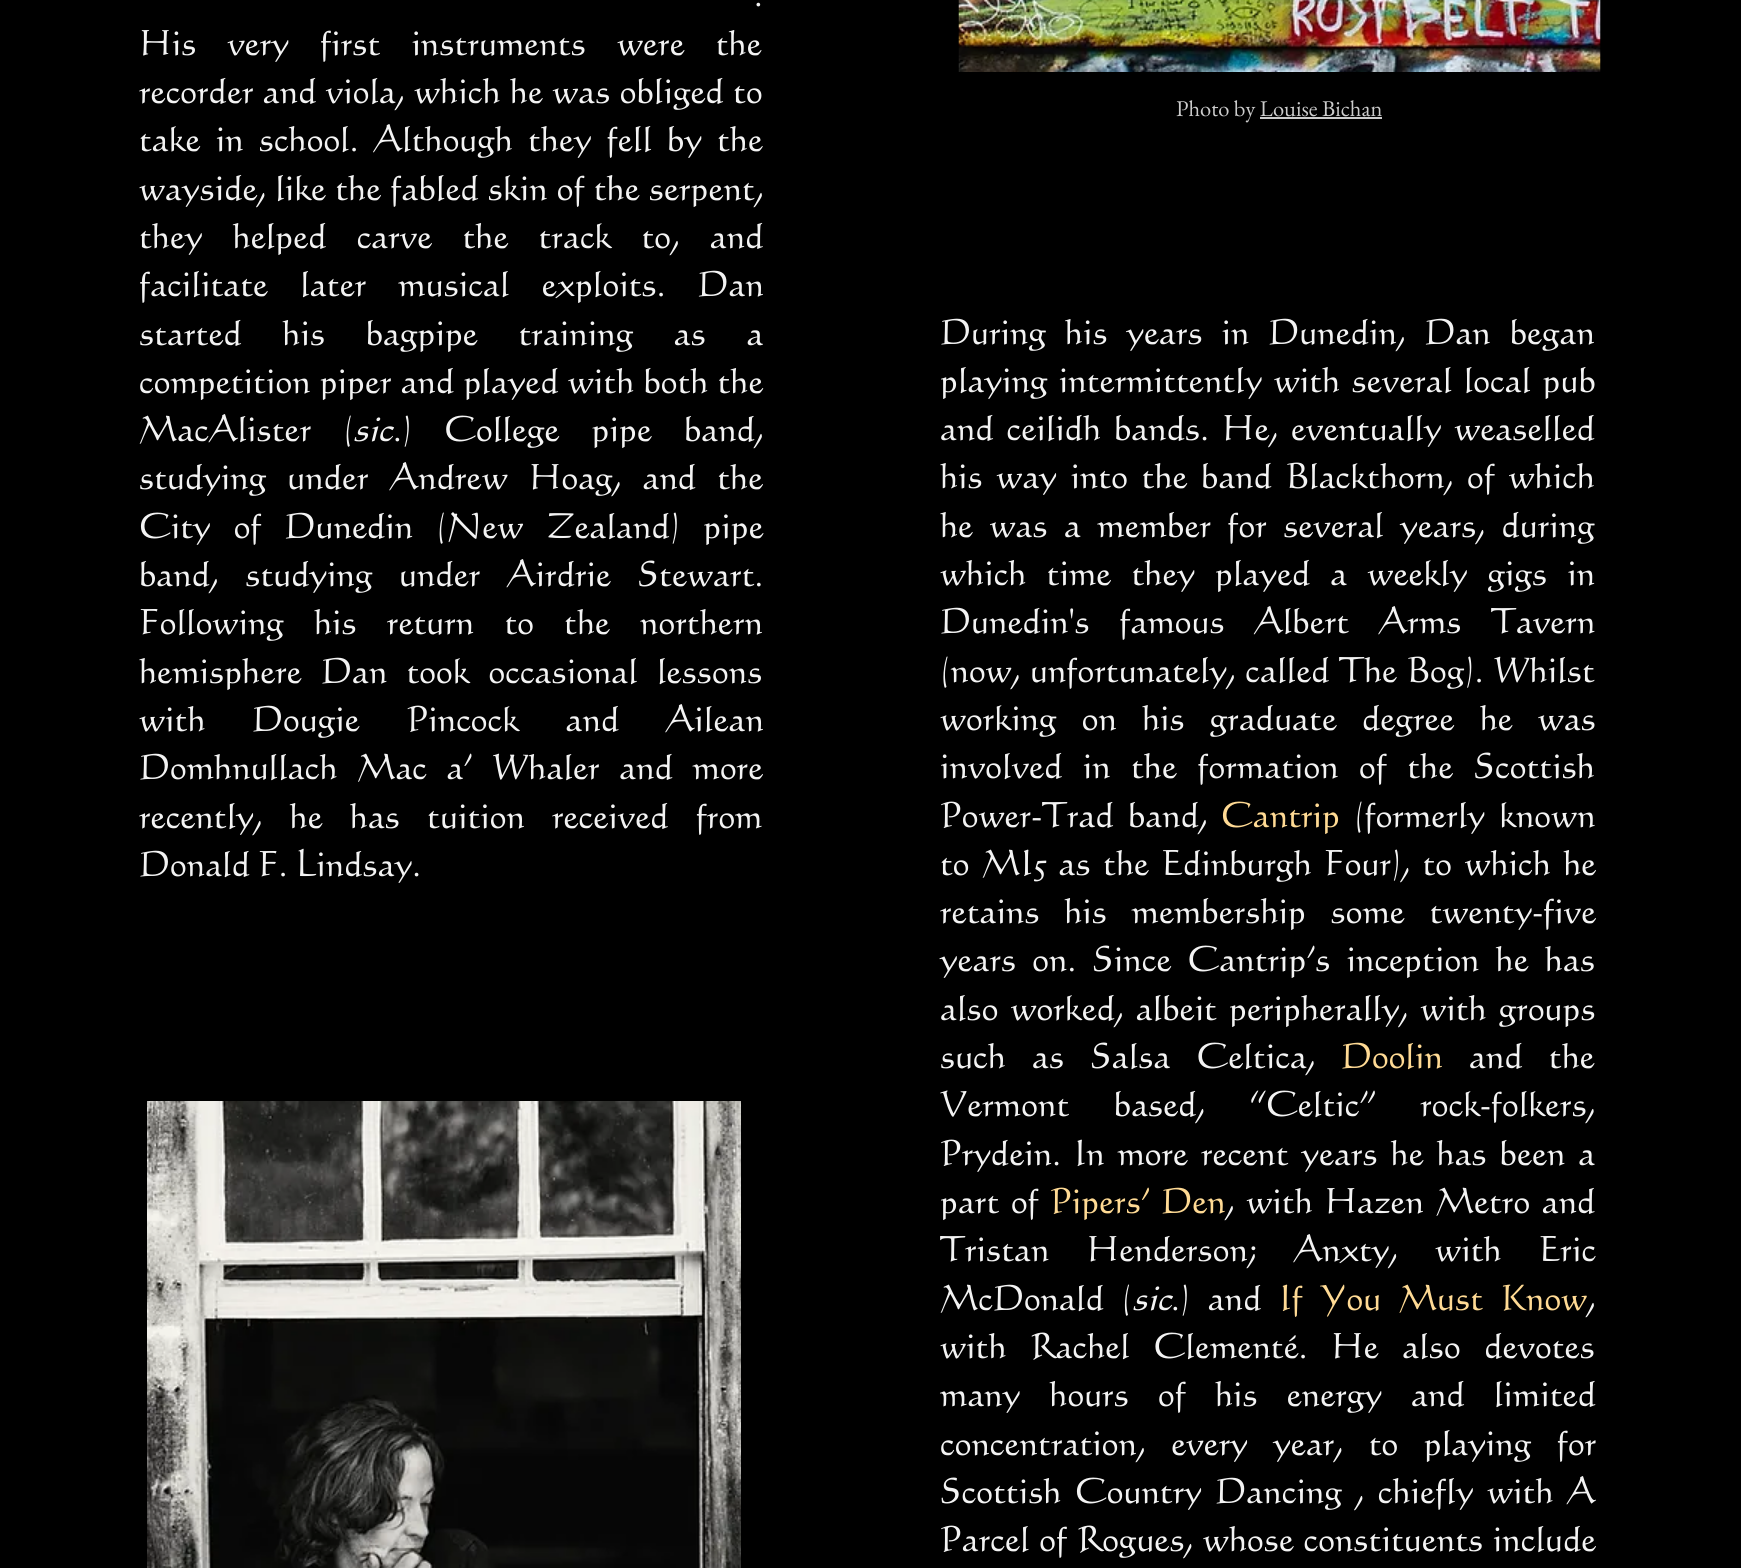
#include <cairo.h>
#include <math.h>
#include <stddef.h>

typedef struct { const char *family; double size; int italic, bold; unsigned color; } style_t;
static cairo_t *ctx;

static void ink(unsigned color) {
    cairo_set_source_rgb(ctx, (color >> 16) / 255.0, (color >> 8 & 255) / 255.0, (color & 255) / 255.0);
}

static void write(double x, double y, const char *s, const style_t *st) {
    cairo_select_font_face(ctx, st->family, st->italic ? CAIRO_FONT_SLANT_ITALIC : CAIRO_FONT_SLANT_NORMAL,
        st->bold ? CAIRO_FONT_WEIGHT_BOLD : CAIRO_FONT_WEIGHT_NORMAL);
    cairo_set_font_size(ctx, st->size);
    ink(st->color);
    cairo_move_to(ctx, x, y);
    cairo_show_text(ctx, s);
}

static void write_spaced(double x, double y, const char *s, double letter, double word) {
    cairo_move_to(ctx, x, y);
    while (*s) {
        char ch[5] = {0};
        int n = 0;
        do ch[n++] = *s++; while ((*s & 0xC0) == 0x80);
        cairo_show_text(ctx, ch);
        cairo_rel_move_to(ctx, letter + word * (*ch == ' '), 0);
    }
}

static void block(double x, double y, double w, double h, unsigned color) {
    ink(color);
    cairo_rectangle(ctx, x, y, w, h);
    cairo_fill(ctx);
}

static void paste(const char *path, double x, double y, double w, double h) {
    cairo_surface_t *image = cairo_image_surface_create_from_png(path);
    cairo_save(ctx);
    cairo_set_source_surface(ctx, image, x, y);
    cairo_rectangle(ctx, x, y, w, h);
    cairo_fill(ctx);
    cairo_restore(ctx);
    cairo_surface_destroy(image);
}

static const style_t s1 = {"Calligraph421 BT", 34.5, 0, 0, 0xf3f3f3};
static const style_t s2 = {"Calligraph421 BT", 34.5, 1, 0, 0xf3f3f3};
static const style_t s3 = {"EB Garamond", 22.5, 0, 0, 0xcccccc};
static const style_t s4 = {"Calligraph421 BT", 34.5, 0, 0, 0xffda94};

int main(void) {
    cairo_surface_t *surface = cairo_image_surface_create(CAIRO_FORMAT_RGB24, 1741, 1568);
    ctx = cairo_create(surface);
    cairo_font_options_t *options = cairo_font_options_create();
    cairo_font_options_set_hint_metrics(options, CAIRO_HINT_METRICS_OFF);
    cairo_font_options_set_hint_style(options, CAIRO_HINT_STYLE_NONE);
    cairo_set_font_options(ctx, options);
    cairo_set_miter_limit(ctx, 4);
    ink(0x000000);
    cairo_paint(ctx);
    write(754, 6, ".", &s1);
    write_spaced(139, 55, "His very first instruments were the", 0, 23);
    write_spaced(139, 103, "recorder and viola, which he was obliged to", 0, 1.25);
    write_spaced(139, 151, "take in school. Although they fell by the", 0, 7);
    write_spaced(139, 200, "wayside, like the fabled skin of the serpent,", 0, 1);
    write_spaced(139, 248, "they helped carve the track to, and", 0, 22);
    write_spaced(139, 296, "facilitate later musical exploits. Dan", 0, 24);
    write_spaced(139, 345, "started his bagpipe training as a", 0, 32.5);
    write_spaced(139, 393, "competition piper and played with both the", 0, 1);
    write_spaced(139, 441, "MacAlister (", 0, 24);
    write(353, 441, "sic", &s2);
    cairo_select_font_face(ctx, "Calligraph421 BT", CAIRO_FONT_SLANT_NORMAL, CAIRO_FONT_WEIGHT_NORMAL);
    write_spaced(393, 441, ".) College pipe band,", 0, 24);
    write_spaced(139, 489, "studying under Andrew Hoag, and the", 0, 13);
    write_spaced(139, 538, "City of Dunedin (New Zealand) pipe", 0, 15);
    write_spaced(139, 586, "band, studying under Airdrie Stewart.", 0, 18.5);
    write_spaced(139, 634, "Following his return to the northern", 0, 22);
    write_spaced(139, 683, "hemisphere Dan took occasional lessons", 0, 11);
    write_spaced(139, 731, "with Dougie Pincock and Ailean", 0, 38.5);
    write_spaced(139, 779, "Domhnullach Mac a’ Whaler and more", 0, 11.5);
    write_spaced(139, 828, "recently, he has tuition received from", 0, 19);
    write(139, 876, "Donald F. Lindsay.", &s1);
    paste("pic1.png", 958, 0, 643, 72);
    write(1176, 116, "Photo by Louise Bichan", &s3);
    block(1260, 117, 122, 2, 0xcccccc);
    paste("pic2.png", 147, 1101, 594, 467);
    cairo_select_font_face(ctx, "Calligraph421 BT", CAIRO_FONT_SLANT_NORMAL, CAIRO_FONT_WEIGHT_NORMAL);
    cairo_set_font_size(ctx, 34.5);
    ink(0xf3f3f3);
    write_spaced(940, 344, "During his years in Dunedin, Dan began", 0, 10.75);
    write_spaced(940, 392, "playing intermittently with several local pub", 0, 3.25);
    write_spaced(940, 440, "and ceilidh bands. He, eventually weaselled", 0, 4.75);
    write_spaced(940, 488, "his way into the band Blackthorn, of which", 0, 5.5);
    write_spaced(940, 537, "he was a member for several years, during", 0, 8.25);
    write_spaced(940, 585, "which time they played a weekly gigs in", 0, 12);
    write_spaced(940, 633, "Dunedin's famous Albert Arms Tavern", 0, 21.5);
    write_spaced(940, 682, "(now, unfortunately, called The Bog). Whilst", 0, 1.5);
    write_spaced(940, 730, "working on his graduate degree he was", 0, 17);
    write_spaced(940, 778, "involved in the formation of the Scottish", 0, 12.25);
    write_spaced(940, 827, "Power-Trad band,", 0, 6);
    write(1221, 827, "Cantrip", &s4);
    ink(0xf3f3f3);
    write_spaced(1354, 827, "(formerly known", 0, 6);
    write_spaced(940, 875, "to MI5 as the Edinburgh Four), to which he", 0, 4.25);
    write_spaced(940, 923, "retains his membership some twenty-five", 0, 16.5);
    write_spaced(940, 971, "years on. Since Cantrip’s inception he has", 0, 8);
    write_spaced(940, 1020, "also worked, albeit peripherally, with groups", 0, 4);
    write_spaced(940, 1068, "such as Salsa Celtica,", 0, 18);
    write(1341, 1068, "Doolin", &s4);
    ink(0xf3f3f3);
    write_spaced(1469, 1068, "and the", 0, 18);
    write_spaced(940, 1116, "Vermont based, “Celtic” rock-folkers,", 0, 36.5);
    write_spaced(940, 1165, "Prydein. In more recent years he has been a", 0, 4.75);
    write_spaced(940, 1213, "part of", 0, 3.5);
    ink(0xffda94);
    write_spaced(1050, 1213, "Pipers’ Den", 0, 3.5);
    ink(0xf3f3f3);
    write_spaced(1226, 1213, ", with Hazen Metro and", 0, 3.5);
    write_spaced(940, 1261, "Tristan Henderson; Anxty, with Eric", 0, 29);
    write_spaced(940, 1310, "McDonald (", 0, 9.5);
    write(1132, 1310, "sic", &s2);
    cairo_select_font_face(ctx, "Calligraph421 BT", CAIRO_FONT_SLANT_NORMAL, CAIRO_FONT_WEIGHT_NORMAL);
    write_spaced(1171, 1310, ".) and", 0, 9.5);
    ink(0xffda94);
    write_spaced(1279, 1310, "If You Must Know", 0, 9.5);
    write(1587, 1310, ",", &s1);
    write_spaced(940, 1358, "with Rachel Clementé. He also devotes", 0, 15.5);
    write_spaced(940, 1406, "many hours of his energy and limited", 0, 21);
    write_spaced(940, 1455, "concentration, every year, to playing for", 0, 17.5);
    write_spaced(940, 1503, "Scottish Country Dancing , chiefly with A", 0, 5.5);
    write_spaced(940, 1551, "Parcel of Rogues, whose constituents include", 0, 1.5);
    cairo_surface_write_to_png(surface, "screenshot.png");
    cairo_font_options_destroy(options);
    cairo_destroy(ctx);
    cairo_surface_destroy(surface);
    return 0;
}
